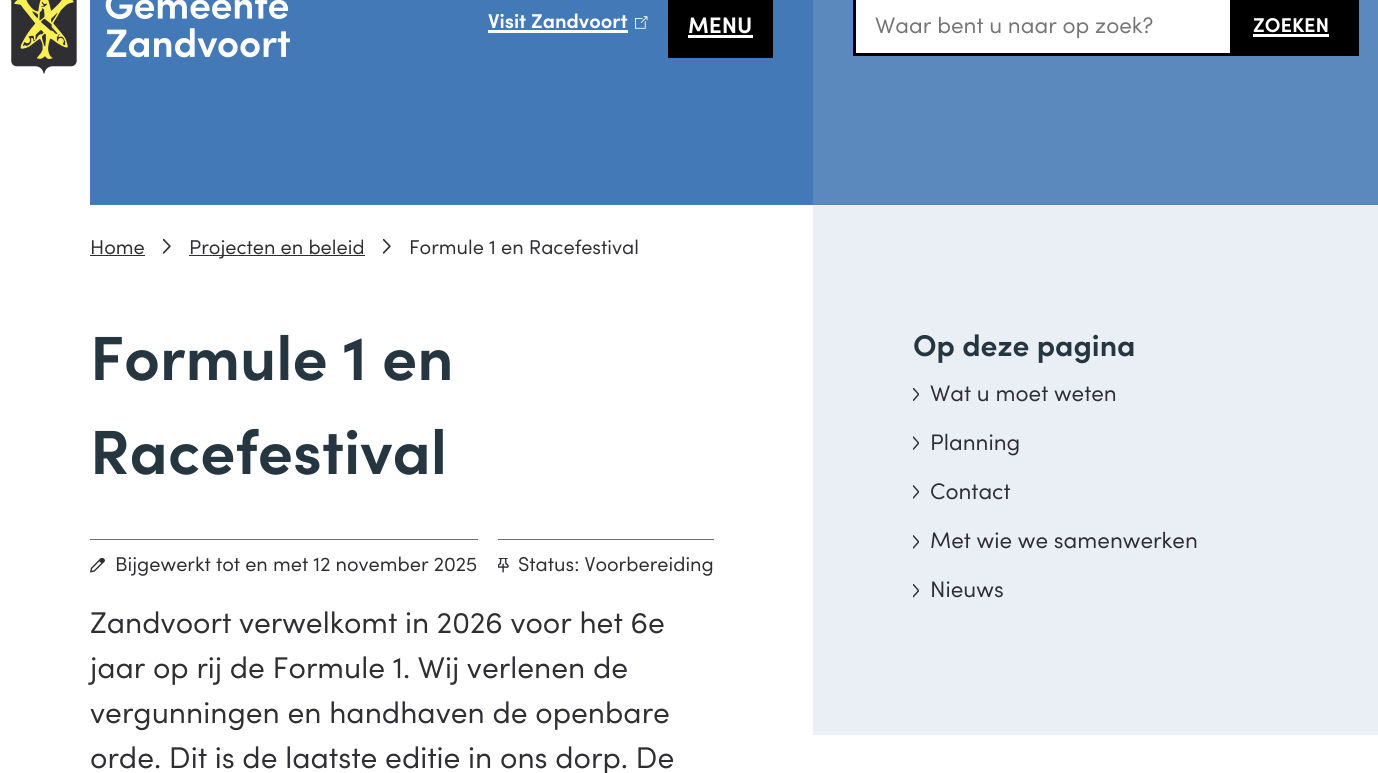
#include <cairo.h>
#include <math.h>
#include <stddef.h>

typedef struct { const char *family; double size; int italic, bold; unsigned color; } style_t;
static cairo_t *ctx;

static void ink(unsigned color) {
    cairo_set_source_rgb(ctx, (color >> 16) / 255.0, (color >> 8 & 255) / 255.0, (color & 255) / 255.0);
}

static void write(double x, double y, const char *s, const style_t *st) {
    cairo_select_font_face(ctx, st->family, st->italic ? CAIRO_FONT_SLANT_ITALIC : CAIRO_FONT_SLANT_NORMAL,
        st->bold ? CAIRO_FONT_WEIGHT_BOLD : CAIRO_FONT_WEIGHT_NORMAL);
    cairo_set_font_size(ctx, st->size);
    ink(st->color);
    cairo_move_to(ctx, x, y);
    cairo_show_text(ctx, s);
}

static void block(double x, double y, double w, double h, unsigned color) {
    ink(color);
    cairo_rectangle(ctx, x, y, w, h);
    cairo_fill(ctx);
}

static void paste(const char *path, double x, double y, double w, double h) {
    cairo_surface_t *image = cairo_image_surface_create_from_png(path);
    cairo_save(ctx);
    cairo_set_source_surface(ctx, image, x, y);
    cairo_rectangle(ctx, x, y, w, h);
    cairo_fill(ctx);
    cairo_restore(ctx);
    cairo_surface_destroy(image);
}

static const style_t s1 = {"Sofia", 20, 0, 1, 0xffffff};
static const style_t s2 = {"Sofia", 22.5, 0, 1, 0xffffff};
static const style_t s3 = {"Sofia", 22.5, 0, 0, 0x757575};
static const style_t s4 = {"Sofia", 20, 0, 0, 0x2e2e33};
static const style_t s5 = {"Sofia", 62.5, 0, 1, 0x263640};
static const style_t s6 = {"Sofia", 30, 0, 1, 0x263640};
static const style_t s7 = {"Sofia", 22.5, 0, 0, 0x2e2e33};
static const style_t s8 = {"Sofia", 30, 0, 0, 0x2e2e33};

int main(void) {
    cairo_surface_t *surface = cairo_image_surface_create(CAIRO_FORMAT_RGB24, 1378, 773);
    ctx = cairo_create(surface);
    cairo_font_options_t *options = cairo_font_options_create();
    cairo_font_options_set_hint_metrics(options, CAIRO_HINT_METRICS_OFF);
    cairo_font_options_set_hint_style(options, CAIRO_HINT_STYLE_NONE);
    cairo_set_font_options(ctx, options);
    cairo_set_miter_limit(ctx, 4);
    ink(0xffffff);
    cairo_paint(ctx);
    block(90, 0, 723, 205, 0x4379b6);
    paste("pic1.png", 11, 0, 279, 74);
    write(488, 28, "Visit Zandvoort", &s1);
    block(488, 30, 140, 3, 0xffffff);
    paste("pic2.png", 635, 16, 13, 13);
    block(668, 0, 105, 58, 0x000000);
    write(688, 33, "MENU", &s2);
    block(688, 35, 65, 3, 0xffffff);
    block(813, 0, 565, 205, 0x5b89be);
    ink(0xffffff);
    cairo_rectangle(ctx, 854.5, -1.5, 377, 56);
    cairo_fill_preserve(ctx);
    ink(0x000000);
    cairo_set_line_width(ctx, 3);
    cairo_stroke(ctx);
    write(875, 33, "Waar bent u naar op zoek?", &s3);
    block(1233, 0, 126, 56, 0x000000);
    write(1253, 32, "ZOEKEN", &s1);
    block(1253, 34, 76, 3, 0xffffff);
    write(90, 254, "Home", &s4);
    block(90, 255, 55, 1, 0x2e2e33);
    paste("pic3.png", 163, 239, 8, 15);
    block(189, 255, 176, 1, 0x2e2e33);
    write(189, 254, "Projecten en beleid", &s4);
    paste("pic3.png", 383, 239, 8, 15);
    write(409, 254, "Formule 1 en Racefestival", &s4);
    write(90, 380, "Formule 1 en", &s5);
    write(90, 474, "Racefestival", &s5);
    block(90, 539, 388, 1, 0x6f7071);
    paste("pic4.png", 90, 558, 15, 15);
    write(115, 571, "Bijgewerkt tot en met 12 november 2025", &s4);
    block(498, 539, 216, 1, 0x6f7071);
    paste("pic5.png", 498, 558, 11, 15);
    write(518, 571, "Status: Voorbereiding", &s4);
    block(813, 205, 565, 530, 0xeaeff6);
    write(913, 356, "Op deze pagina", &s6);
    paste("pic6.png", 913, 388, 6, 13);
    write(930, 401, "Wat u moet weten", &s7);
    paste("pic7.png", 913, 436, 6, 14);
    write(930, 450, "Planning", &s7);
    paste("pic8.png", 913, 485, 6, 14);
    write(930, 499, "Contact", &s7);
    paste("pic8.png", 913, 535, 6, 14);
    write(930, 548, "Met wie we samenwerken", &s7);
    paste("pic9.png", 913, 584, 6, 14);
    write(930, 597, "Nieuws", &s7);
    write(90, 633, "Zandvoort verwelkomt in 2026 voor het 6e", &s8);
    write(90, 678, "jaar op rij de Formule 1. Wij verlenen de", &s8);
    write(90, 723, "vergunningen en handhaven de openbare", &s8);
    write(90, 768, "orde. Dit is de laatste editie in ons dorp. De", &s8);
    cairo_surface_write_to_png(surface, "screenshot.png");
    cairo_font_options_destroy(options);
    cairo_destroy(ctx);
    cairo_surface_destroy(surface);
    return 0;
}
